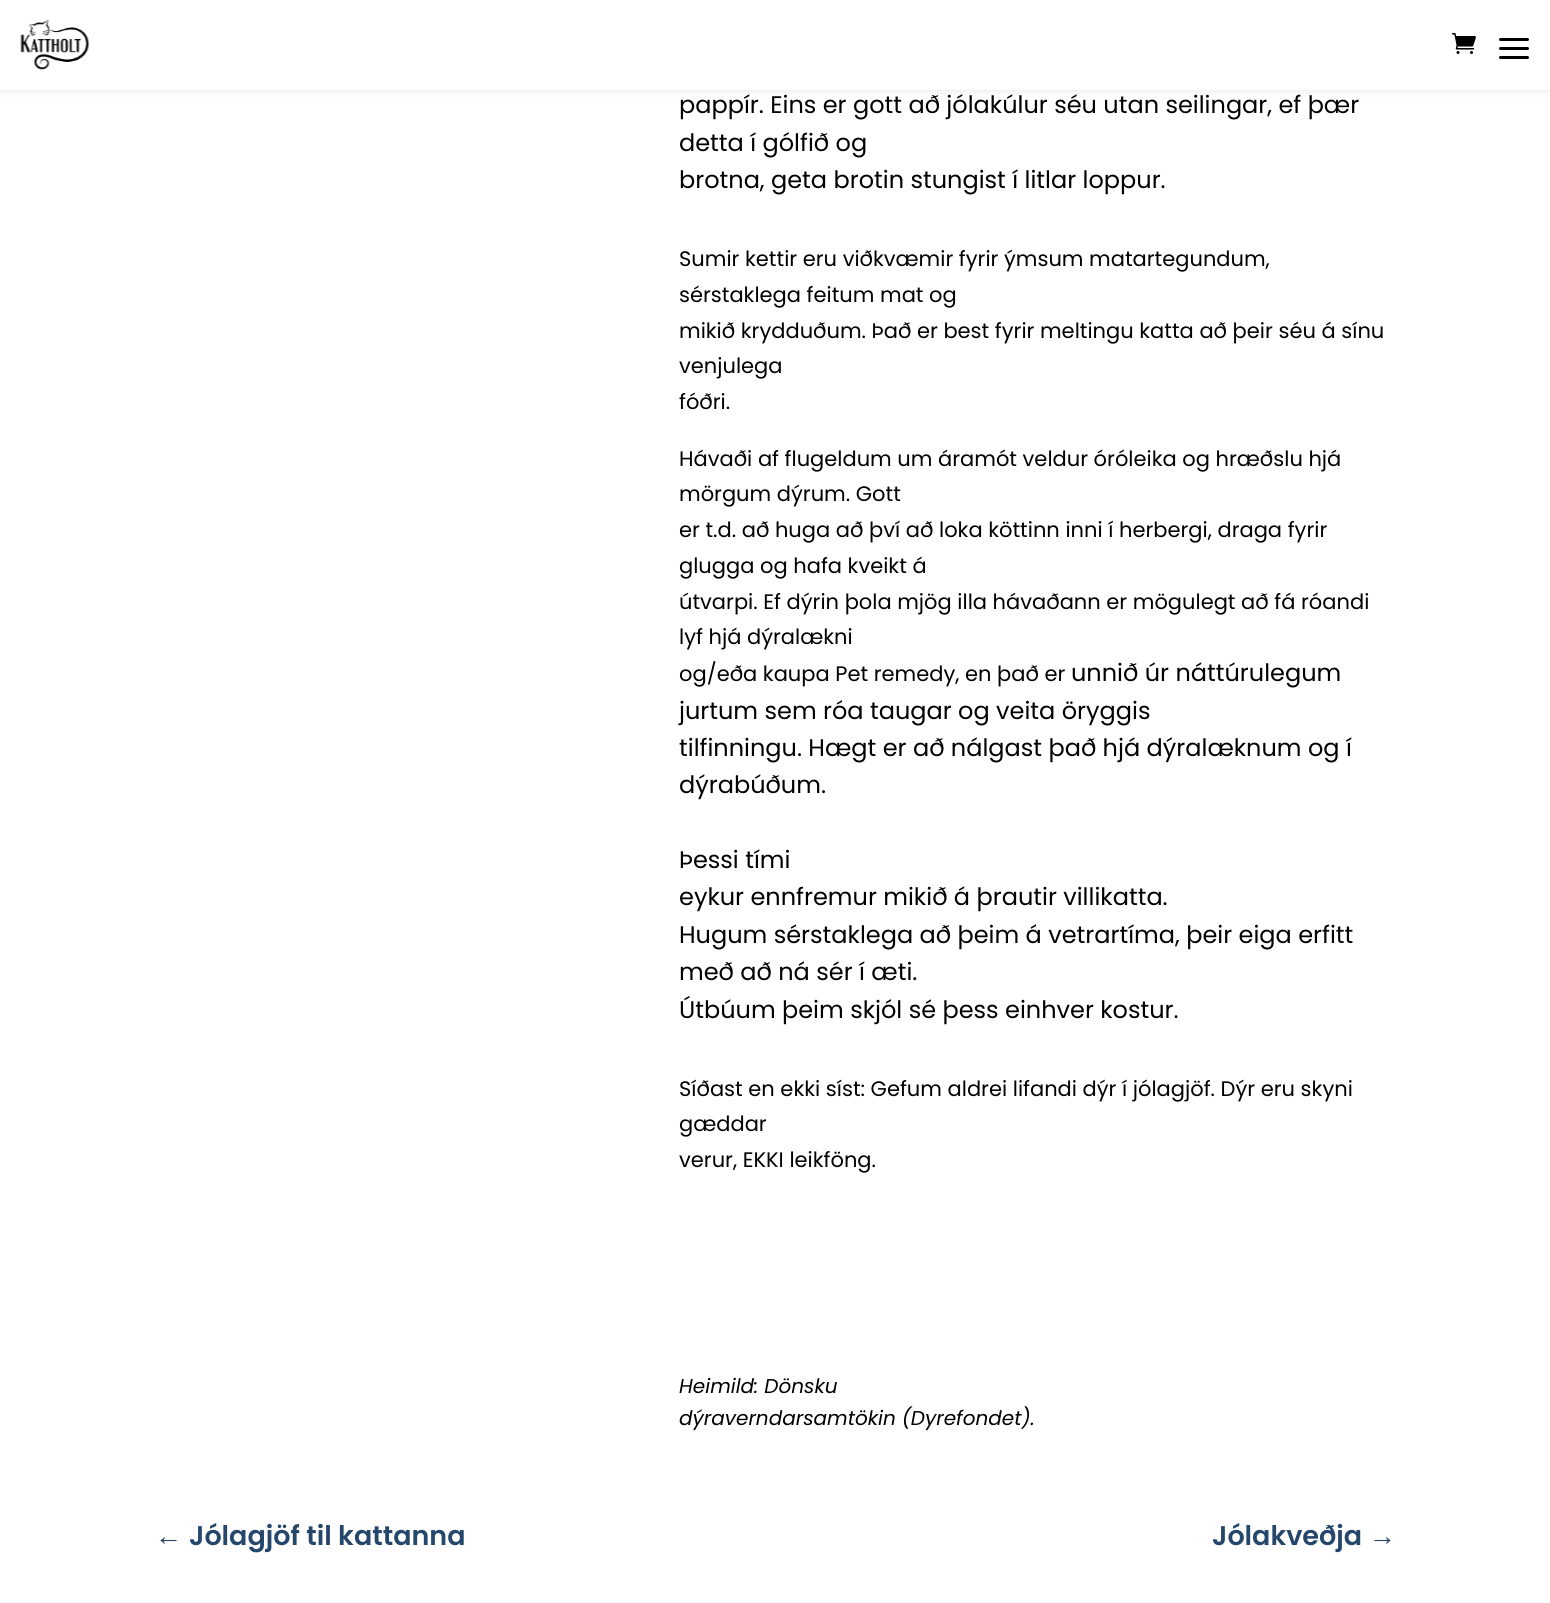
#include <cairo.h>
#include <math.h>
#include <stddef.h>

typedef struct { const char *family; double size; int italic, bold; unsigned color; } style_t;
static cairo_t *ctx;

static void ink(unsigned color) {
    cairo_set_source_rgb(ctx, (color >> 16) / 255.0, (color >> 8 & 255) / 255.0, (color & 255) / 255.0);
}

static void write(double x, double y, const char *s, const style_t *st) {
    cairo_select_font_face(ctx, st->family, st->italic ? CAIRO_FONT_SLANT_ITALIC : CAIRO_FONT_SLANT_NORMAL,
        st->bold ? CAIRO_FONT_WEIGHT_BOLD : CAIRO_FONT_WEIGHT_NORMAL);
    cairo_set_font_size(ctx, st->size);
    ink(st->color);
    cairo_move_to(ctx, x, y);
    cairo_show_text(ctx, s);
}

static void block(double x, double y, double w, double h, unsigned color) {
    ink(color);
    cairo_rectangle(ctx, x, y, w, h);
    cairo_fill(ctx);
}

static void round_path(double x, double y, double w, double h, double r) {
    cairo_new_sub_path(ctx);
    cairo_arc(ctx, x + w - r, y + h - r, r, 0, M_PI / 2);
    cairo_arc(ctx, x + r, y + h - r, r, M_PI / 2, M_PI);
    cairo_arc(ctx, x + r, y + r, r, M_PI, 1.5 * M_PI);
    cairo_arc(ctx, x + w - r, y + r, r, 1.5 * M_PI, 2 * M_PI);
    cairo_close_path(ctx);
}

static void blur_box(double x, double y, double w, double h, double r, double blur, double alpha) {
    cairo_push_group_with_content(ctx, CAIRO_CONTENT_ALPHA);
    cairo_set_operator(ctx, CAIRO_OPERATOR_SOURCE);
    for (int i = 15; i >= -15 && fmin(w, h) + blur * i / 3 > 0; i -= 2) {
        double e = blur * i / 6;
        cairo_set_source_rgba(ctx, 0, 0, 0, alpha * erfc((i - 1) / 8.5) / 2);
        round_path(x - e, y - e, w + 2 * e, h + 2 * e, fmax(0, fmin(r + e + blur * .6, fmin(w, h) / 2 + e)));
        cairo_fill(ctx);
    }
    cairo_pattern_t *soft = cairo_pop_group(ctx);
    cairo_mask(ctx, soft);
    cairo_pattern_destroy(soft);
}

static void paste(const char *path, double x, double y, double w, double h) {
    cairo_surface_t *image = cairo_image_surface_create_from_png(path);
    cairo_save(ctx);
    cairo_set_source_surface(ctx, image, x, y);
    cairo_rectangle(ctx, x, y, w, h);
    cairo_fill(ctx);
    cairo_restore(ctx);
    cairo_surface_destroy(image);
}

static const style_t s1 = {"Poppins", 24, 0, 0, 0x000000};
static const style_t s2 = {"Poppins", 21, 0, 0, 0x000000};
static const style_t s3 = {"Poppins", 20, 1, 0, 0x000000};
static const style_t s4 = {"Liberation Sans", 27, 0, 1, 0x26476c};
static const style_t s5 = {"Poppins SemiBold", 27, 0, 0, 0x26476c};

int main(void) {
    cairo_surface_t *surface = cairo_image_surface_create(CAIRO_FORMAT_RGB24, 1550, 1603);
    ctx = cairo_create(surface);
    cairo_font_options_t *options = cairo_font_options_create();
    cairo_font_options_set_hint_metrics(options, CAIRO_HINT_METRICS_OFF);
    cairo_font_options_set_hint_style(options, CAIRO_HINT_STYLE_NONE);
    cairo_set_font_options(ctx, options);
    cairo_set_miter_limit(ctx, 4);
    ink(0xffffff);
    cairo_paint(ctx);
    ink(0x000000);
    blur_box(0, 0, 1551, 90, 0, 5, 0.1);
    block(0, 0, 1550, 90, 0xffffff);
    paste("pic1.png", 20, 20, 70, 50);
    paste("pic2.png", 1452, 33, 24, 21);
    ink(0x000000);
    round_path(1499, 47, 30, 3, 1.5);
    cairo_fill(ctx);
    round_path(1499, 38, 30, 3, 1.5);
    cairo_fill(ctx);
    round_path(1499, 56, 30, 3, 1.5);
    cairo_fill(ctx);
    write(679, 113, "pappír. Eins er gott að jólakúlur séu utan seilingar, ef þær", &s1);
    write(679, 151, "detta í gólfið og", &s1);
    write(679, 188, "brotna, geta brotin stungist í litlar loppur.", &s1);
    write(679, 266, "Sumir kettir eru viðkvæmir fyrir ýmsum matartegundum,", &s2);
    write(679, 302, "sérstaklega feitum mat og", &s2);
    write(679, 338, "mikið krydduðum. Það er best fyrir meltingu katta að þeir séu á sínu", &s2);
    write(679, 373, "venjulega", &s2);
    write(679, 409, "fóðri.", &s2);
    write(679, 466, "Hávaði af flugeldum um áramót veldur óróleika og hræðslu hjá", &s2);
    write(679, 501, "mörgum dýrum. Gott", &s2);
    write(679, 537, "er t.d. að huga að því að loka köttinn inni í herbergi, draga fyrir", &s2);
    write(679, 573, "glugga og hafa kveikt á", &s2);
    write(679, 609, "útvarpi. Ef dýrin þola mjög illa hávaðann er mögulegt að fá róandi", &s2);
    write(679, 644, "lyf hjá dýralækni", &s2);
    write(679, 681, "og/eða kaupa Pet remedy, en það er", &s2);
    write(1071, 681, "unnið úr náttúrulegum", &s1);
    write(679, 719, "jurtum sem róa taugar og veita öryggis", &s1);
    write(679, 756, "tilfinningu. Hægt er að nálgast það hjá dýralæknum og í", &s1);
    write(679, 793, "dýrabúðum.", &s1);
    write(679, 868, "Þessi tími", &s1);
    write(679, 905, "eykur ennfremur mikið á þrautir villikatta.", &s1);
    write(679, 943, "Hugum sérstaklega að þeim á vetrartíma, þeir eiga erfitt", &s1);
    write(679, 980, "með að ná sér í æti.", &s1);
    write(679, 1018, "Útbúum þeim skjól sé þess einhver kostur.", &s1);
    write(679, 1096, "Síðast en ekki síst: Gefum aldrei lifandi dýr í jólagjöf. Dýr eru skyni", &s2);
    write(679, 1131, "gæddar", &s2);
    write(679, 1167, "verur, EKKI leikföng.", &s2);
    write(679, 1393, "Heimild: Dönsku", &s3);
    write(679, 1425, "dýraverndarsamtökin (Dyrefondet).", &s3);
    write(155, 1545, "←", &s4);
    write(189, 1545, "Jólagjöf til kattanna", &s5);
    write(1212, 1545, "Jólakveðja", &s5);
    write(1369, 1545, "→", &s4);
    cairo_surface_write_to_png(surface, "screenshot.png");
    cairo_font_options_destroy(options);
    cairo_destroy(ctx);
    cairo_surface_destroy(surface);
    return 0;
}
